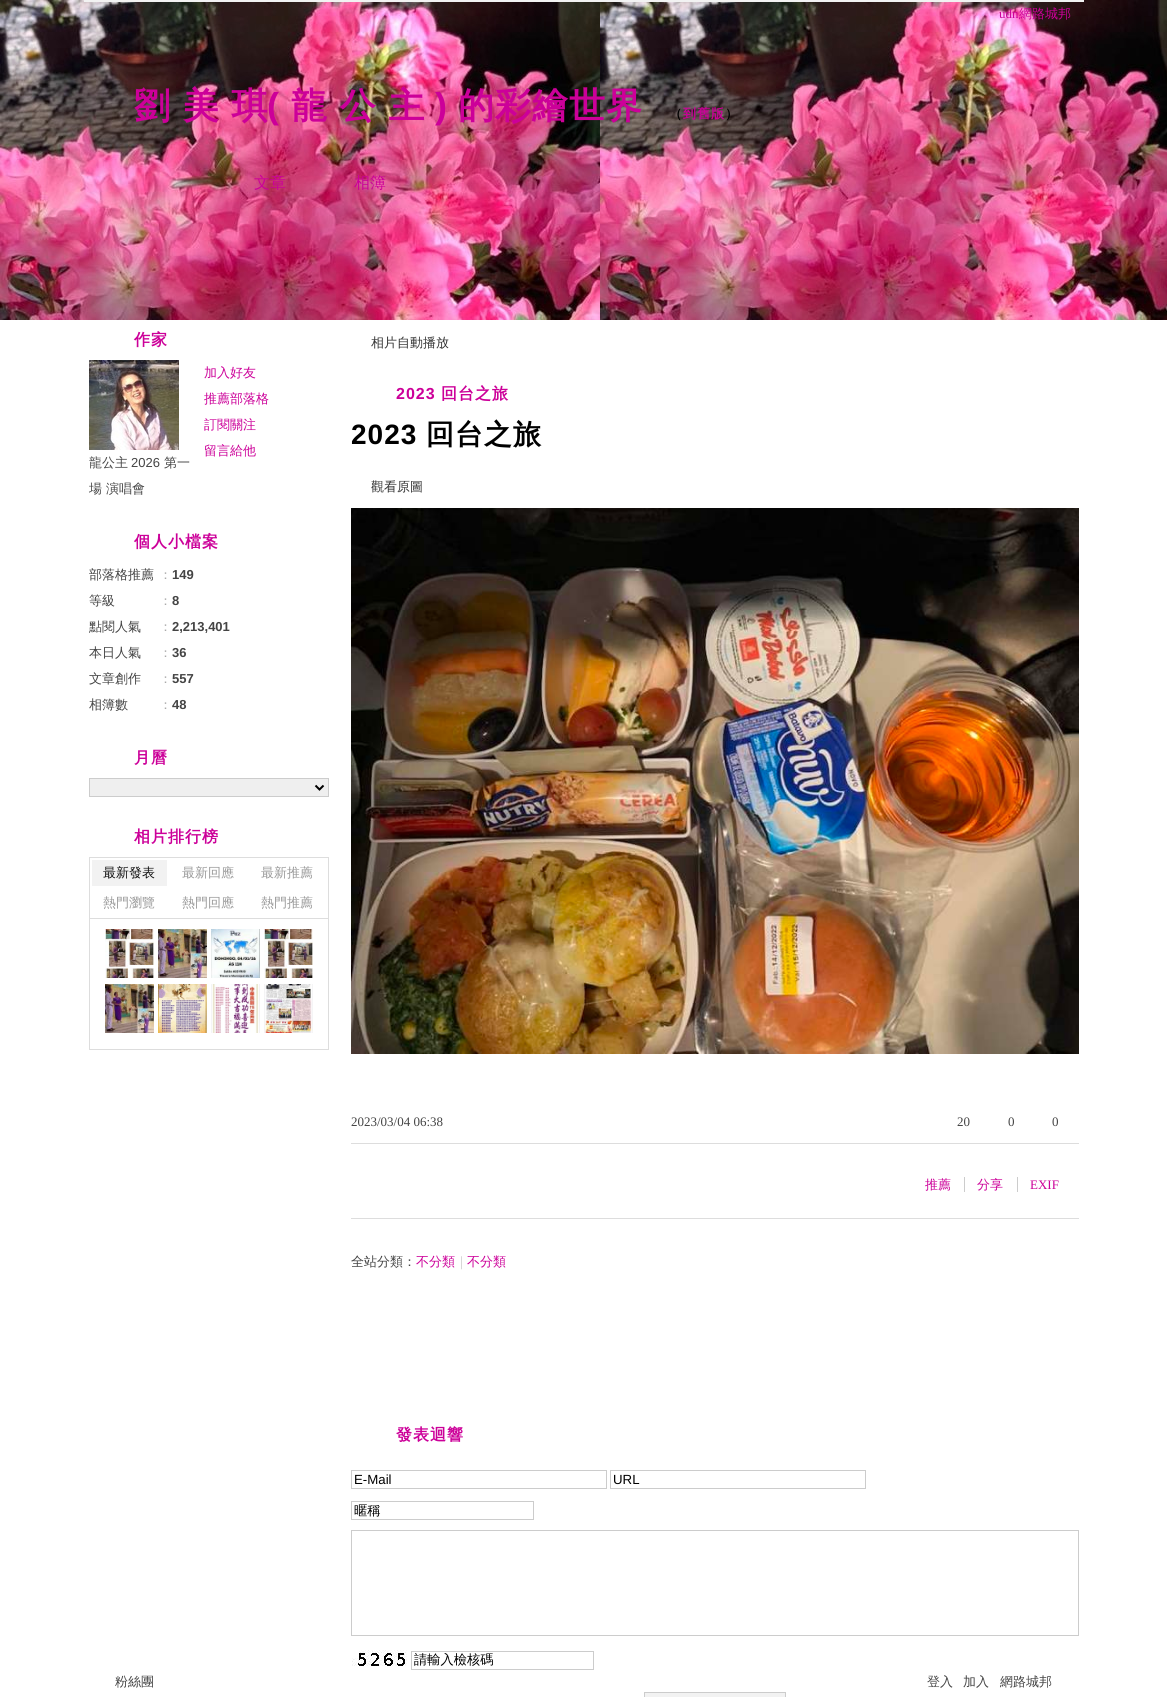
#include <cairo.h>
#include <math.h>
#include <stddef.h>

typedef struct { const char *family; double size; int italic, bold; unsigned color; } style_t;
static cairo_t *ctx;

static void ink(unsigned color) {
    cairo_set_source_rgb(ctx, (color >> 16) / 255.0, (color >> 8 & 255) / 255.0, (color & 255) / 255.0);
}

static void write(double x, double y, const char *s, const style_t *st) {
    cairo_select_font_face(ctx, st->family, st->italic ? CAIRO_FONT_SLANT_ITALIC : CAIRO_FONT_SLANT_NORMAL,
        st->bold ? CAIRO_FONT_WEIGHT_BOLD : CAIRO_FONT_WEIGHT_NORMAL);
    cairo_set_font_size(ctx, st->size);
    ink(st->color);
    cairo_move_to(ctx, x, y);
    cairo_show_text(ctx, s);
}

static void write_spaced(double x, double y, const char *s, double letter, double word) {
    cairo_move_to(ctx, x, y);
    while (*s) {
        char ch[5] = {0};
        int n = 0;
        do ch[n++] = *s++; while ((*s & 0xC0) == 0x80);
        cairo_show_text(ctx, ch);
        cairo_rel_move_to(ctx, letter + word * (*ch == ' '), 0);
    }
}

static void block(double x, double y, double w, double h, unsigned color) {
    ink(color);
    cairo_rectangle(ctx, x, y, w, h);
    cairo_fill(ctx);
}

static void paste(const char *path, double x, double y, double w, double h) {
    cairo_surface_t *image = cairo_image_surface_create_from_png(path);
    cairo_save(ctx);
    cairo_set_source_surface(ctx, image, x, y);
    cairo_rectangle(ctx, x, y, w, h);
    cairo_fill(ctx);
    cairo_restore(ctx);
    cairo_surface_destroy(image);
}

static const style_t s1 = {"Liberation Serif", 13, 0, 0, 0xcc0099};
static const style_t s2 = {"WenQuanYi Zen Hei Medium", 13, 0, 0, 0xcc0099};
static const style_t s3 = {"WenQuanYi Zen Hei Medium", 16, 0, 0, 0xcc0099};
static const style_t s4 = {"WenQuanYi Zen Hei Medium", 13, 0, 0, 0x444444};
static const style_t s5 = {"Liberation Sans", 13, 0, 0, 0x444444};
static const style_t s6 = {"WenQuanYi Zen Hei Medium", 13, 0, 0, 0xaaaaaa};
static const style_t s7 = {"Liberation Sans", 13, 0, 1, 0x444444};
static const style_t s8 = {"WenQuanYi Zen Hei Medium", 13, 0, 0, 0x111111};
static const style_t s9 = {"WenQuanYi Zen Hei Medium", 13, 0, 0, 0x999999};
static const style_t s10 = {"WenQuanYi Zen Hei Medium", 13, 0, 0, 0x333333};
static const style_t s11 = {"Liberation Serif", 13, 0, 0, 0x444444};
static const style_t s12 = {"WenQuanYi Zen Hei Medium", 13, 0, 0, 0xcccccc};
static const style_t s13 = {"Liberation Sans", 13.25, 0, 0, 0x000000};
static const style_t s14 = {"WenQuanYi Zen Hei Medium", 13.25, 0, 0, 0x000000};

int main(void) {
    cairo_surface_t *surface = cairo_image_surface_create(CAIRO_FORMAT_RGB24, 1167, 1697);
    ctx = cairo_create(surface);
    cairo_font_options_t *options = cairo_font_options_create();
    cairo_font_options_set_hint_metrics(options, CAIRO_HINT_METRICS_OFF);
    cairo_font_options_set_hint_style(options, CAIRO_HINT_STYLE_NONE);
    cairo_set_font_options(ctx, options);
    cairo_set_miter_limit(ctx, 4);
    ink(0xffffff);
    cairo_paint(ctx);
    paste("pic1.png", 0, 0, 1167, 320);
    block(84, 0, 1000, 2, 0xf2f2f2);
    write(999, 18, "udn", &s1);
    write(1019, 18, "網路城邦", &s2);
    cairo_select_font_face(ctx, "WenQuanYi Zen Hei", CAIRO_FONT_SLANT_NORMAL, CAIRO_FONT_WEIGHT_BOLD);
    cairo_set_font_size(ctx, 36);
    write_spaced(134, 118, "劉 美 琪", 1, 0);
    cairo_select_font_face(ctx, "Liberation Sans", CAIRO_FONT_SLANT_NORMAL, CAIRO_FONT_WEIGHT_BOLD);
    write_spaced(267, 118, "(", 1, 0);
    cairo_select_font_face(ctx, "WenQuanYi Zen Hei", CAIRO_FONT_SLANT_NORMAL, CAIRO_FONT_WEIGHT_BOLD);
    write_spaced(291, 118, "龍 公 主", 1, 0);
    cairo_select_font_face(ctx, "Liberation Sans", CAIRO_FONT_SLANT_NORMAL, CAIRO_FONT_WEIGHT_BOLD);
    write_spaced(435, 118, ")", 1, 0);
    cairo_select_font_face(ctx, "WenQuanYi Zen Hei", CAIRO_FONT_SLANT_NORMAL, CAIRO_FONT_WEIGHT_BOLD);
    write_spaced(458, 118, "的彩繪世界", 1, 0);
    cairo_set_font_size(ctx, 13);
    ink(0x000000);
    write_spaced(669, 118, "（", 1, 0);
    ink(0xcc0099);
    write_spaced(683, 118, "到舊版", 1, 0);
    ink(0x000000);
    write_spaced(725, 118, "）", 1, 0);
    write(254, 188, "文章", &s3);
    write(354, 188, "相簿", &s3);
    cairo_select_font_face(ctx, "WenQuanYi Zen Hei", CAIRO_FONT_SLANT_NORMAL, CAIRO_FONT_WEIGHT_BOLD);
    write_spaced(134, 345, "作家", 1, 0);
    write(204, 377, "加入好友", &s2);
    write(204, 403, "推薦部落格", &s2);
    write(204, 429, "訂閱關注", &s2);
    write(204, 455, "留言給他", &s2);
    paste("pic2.png", 89, 360, 90, 90);
    write(89, 467, "龍公主", &s4);
    write(131, 467, "2026", &s5);
    write(164, 467, "第一", &s4);
    write(89, 493, "場 演唱會", &s4);
    cairo_select_font_face(ctx, "WenQuanYi Zen Hei", CAIRO_FONT_SLANT_NORMAL, CAIRO_FONT_WEIGHT_BOLD);
    cairo_set_font_size(ctx, 16);
    ink(0xcc0099);
    write_spaced(134, 547, "個人小檔案", 1, 0);
    write(89, 579, "部落格推薦", &s4);
    write(159, 579, "：", &s6);
    write(172, 579, "149", &s7);
    write(89, 605, "等級", &s4);
    write(159, 605, "：", &s6);
    write(172, 605, "8", &s7);
    write(89, 631, "點閱人氣", &s4);
    write(159, 631, "：", &s6);
    write(172, 631, "2,213,401", &s7);
    write(89, 657, "本日人氣", &s4);
    write(159, 657, "：", &s6);
    write(172, 657, "36", &s7);
    write(89, 683, "文章創作", &s4);
    write(159, 683, "：", &s6);
    write(172, 683, "557", &s7);
    write(89, 709, "相簿數", &s4);
    write(159, 709, "：", &s6);
    write(172, 709, "48", &s7);
    cairo_select_font_face(ctx, "WenQuanYi Zen Hei", CAIRO_FONT_SLANT_NORMAL, CAIRO_FONT_WEIGHT_BOLD);
    cairo_set_font_size(ctx, 16);
    ink(0xcc0099);
    write_spaced(134, 763, "月曆", 1, 0);
    ink(0xefefef);
    cairo_rectangle(ctx, 89.5, 778.5, 239, 18);
    cairo_fill_preserve(ctx);
    ink(0xcccccc);
    cairo_set_line_width(ctx, 1);
    cairo_stroke(ctx);
    cairo_new_path(ctx);
    cairo_move_to(ctx, 315.5, 785.5);
    cairo_line_to(ctx, 319.5, 789.5);
    cairo_line_to(ctx, 323.5, 785.5);
    ink(0x000000);
    cairo_set_line_width(ctx, 2);
    cairo_stroke(ctx);
    ink(0xcc0099);
    write_spaced(134, 842, "相片排行榜", 1, 0);
    cairo_rectangle(ctx, 89.5, 857.5, 239, 61);
    ink(0xdddddd);
    cairo_set_line_width(ctx, 1);
    cairo_stroke(ctx);
    block(92, 860, 75, 26, 0xf2f2f2);
    write(103, 877, "最新發表", &s8);
    write(182, 877, "最新回應", &s9);
    write(261, 877, "最新推薦", &s9);
    write(103, 907, "熱門瀏覽", &s9);
    write(182, 907, "熱門回應", &s9);
    write(261, 907, "熱門推薦", &s9);
    block(328, 919, 1, 131, 0xdddddd);
    block(89, 1049, 240, 1, 0xdddddd);
    block(89, 919, 1, 131, 0xdddddd);
    paste("pic3.png", 105, 929, 49, 49);
    paste("pic4.png", 158, 929, 49, 49);
    paste("pic5.png", 211, 929, 49, 49);
    paste("pic6.png", 264, 929, 49, 49);
    paste("pic4.png", 105, 984, 49, 49);
    paste("pic7.png", 158, 984, 49, 49);
    paste("pic8.png", 211, 984, 49, 49);
    paste("pic9.png", 264, 984, 49, 49);
    write(371, 347, "相片自動播放", &s10);
    cairo_select_font_face(ctx, "Liberation Sans", CAIRO_FONT_SLANT_NORMAL, CAIRO_FONT_WEIGHT_BOLD);
    cairo_set_font_size(ctx, 16);
    ink(0xcc0099);
    write_spaced(396, 399, "2023", 1, 0);
    cairo_select_font_face(ctx, "WenQuanYi Zen Hei", CAIRO_FONT_SLANT_NORMAL, CAIRO_FONT_WEIGHT_BOLD);
    write_spaced(441, 399, "回台之旅", 1, 0);
    cairo_select_font_face(ctx, "Liberation Sans", CAIRO_FONT_SLANT_NORMAL, CAIRO_FONT_WEIGHT_BOLD);
    cairo_set_font_size(ctx, 28);
    ink(0x000000);
    write_spaced(351, 444, "2023", 1, 0);
    cairo_select_font_face(ctx, "WenQuanYi Zen Hei", CAIRO_FONT_SLANT_NORMAL, CAIRO_FONT_WEIGHT_BOLD);
    write_spaced(426, 444, "回台之旅", 1, 0);
    write(371, 491, "觀看原圖", &s10);
    paste("pic10.png", 351, 508, 728, 546);
    write(351, 1126, "2023/03/04 06:38", &s11);
    write(957, 1126, "20", &s11);
    write(1008, 1126, "0", &s11);
    write(1052, 1126, "0", &s11);
    block(351, 1143, 728, 1, 0xdddddd);
    write(925, 1189, "推薦", &s2);
    block(964, 1177, 1, 15, 0xcccccc);
    write(977, 1189, "分享", &s2);
    block(1017, 1177, 1, 15, 0xcccccc);
    write(1030, 1189, "EXIF", &s1);
    block(351, 1218, 728, 1, 0xdddddd);
    write(351, 1266, "全站分類：", &s4);
    write(416, 1266, "不分類", &s2);
    write(455, 1266, "｜", &s12);
    write(467, 1266, "不分類", &s2);
    cairo_select_font_face(ctx, "WenQuanYi Zen Hei", CAIRO_FONT_SLANT_NORMAL, CAIRO_FONT_WEIGHT_BOLD);
    cairo_set_font_size(ctx, 16);
    write_spaced(396, 1440, "發表迴響", 1, 0);
    cairo_rectangle(ctx, 351.5, 1470.5, 255, 18);
    ink(0xcccccc);
    cairo_stroke(ctx);
    write(354, 1484, "E-Mail", &s13);
    cairo_rectangle(ctx, 610.5, 1470.5, 255, 18);
    ink(0xcccccc);
    cairo_stroke(ctx);
    write(613, 1484, "URL", &s13);
    cairo_rectangle(ctx, 351.5, 1501.5, 182, 18);
    ink(0xcccccc);
    cairo_stroke(ctx);
    write(354, 1515, "暱稱", &s14);
    cairo_rectangle(ctx, 351.5, 1530.5, 727, 105);
    ink(0xcccccc);
    cairo_stroke(ctx);
    paste("pic11.png", 352, 1650, 55, 16);
    cairo_rectangle(ctx, 411.5, 1651.5, 182, 18);
    cairo_stroke(ctx);
    cairo_save(ctx);
    cairo_rectangle(ctx, 414, 1652, 177, 17);
    cairo_clip(ctx);
    write(414, 1664, "請輸入檢核碼", &s14);
    cairo_restore(ctx);
    ink(0xf2f2f2);
    cairo_rectangle(ctx, 644.5, 1692.5, 141, 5);
    cairo_fill_preserve(ctx);
    ink(0xcccccc);
    cairo_stroke(ctx);
    write(115, 1686, "粉絲團", &s4);
    write(927, 1686, "登入", &s4);
    write(963, 1686, "加入", &s4);
    write(1000, 1686, "網路城邦", &s4);
    cairo_surface_write_to_png(surface, "screenshot.png");
    cairo_font_options_destroy(options);
    cairo_destroy(ctx);
    cairo_surface_destroy(surface);
    return 0;
}
